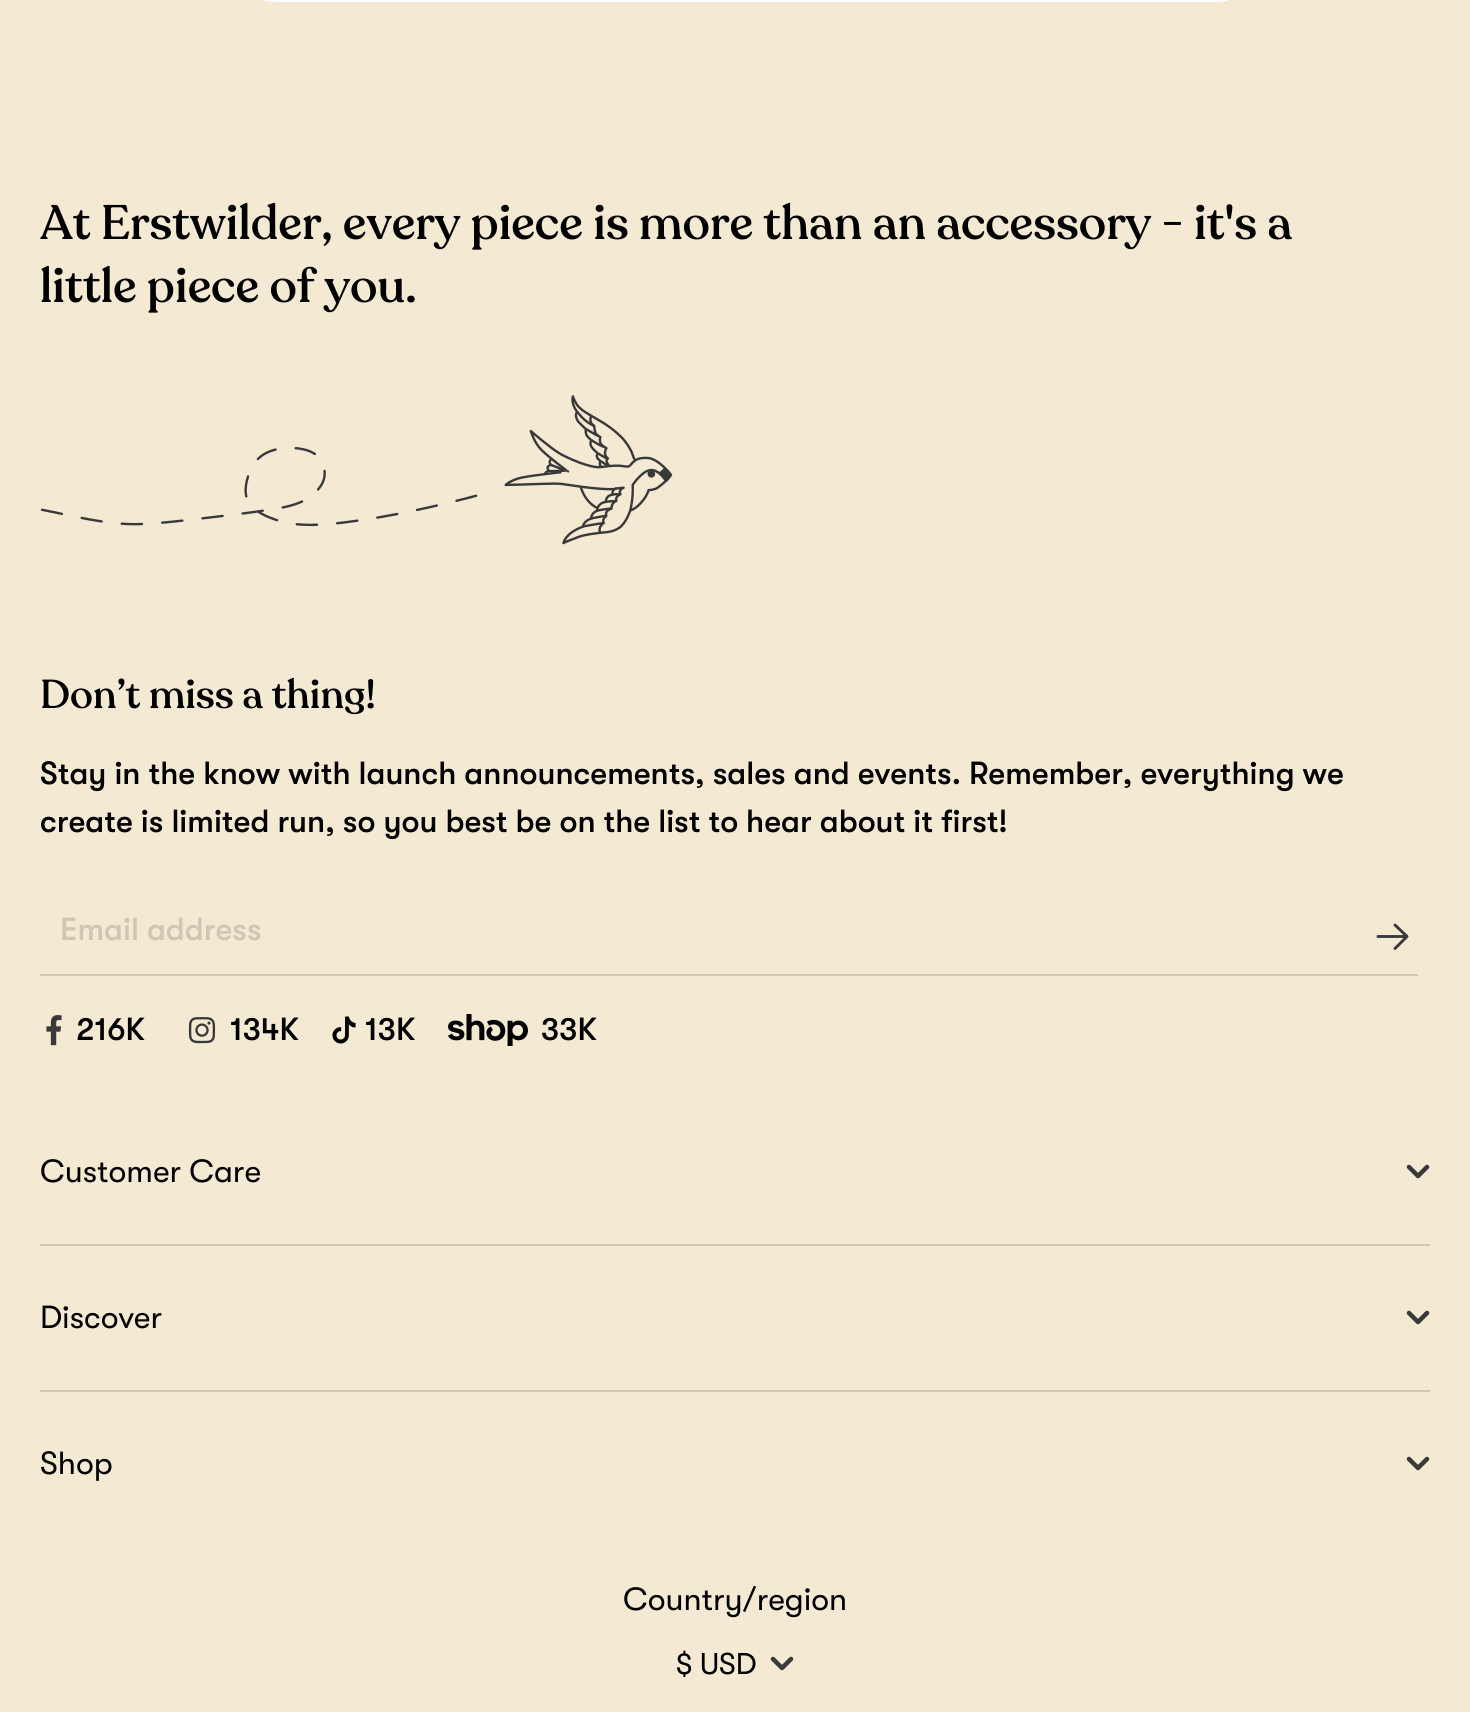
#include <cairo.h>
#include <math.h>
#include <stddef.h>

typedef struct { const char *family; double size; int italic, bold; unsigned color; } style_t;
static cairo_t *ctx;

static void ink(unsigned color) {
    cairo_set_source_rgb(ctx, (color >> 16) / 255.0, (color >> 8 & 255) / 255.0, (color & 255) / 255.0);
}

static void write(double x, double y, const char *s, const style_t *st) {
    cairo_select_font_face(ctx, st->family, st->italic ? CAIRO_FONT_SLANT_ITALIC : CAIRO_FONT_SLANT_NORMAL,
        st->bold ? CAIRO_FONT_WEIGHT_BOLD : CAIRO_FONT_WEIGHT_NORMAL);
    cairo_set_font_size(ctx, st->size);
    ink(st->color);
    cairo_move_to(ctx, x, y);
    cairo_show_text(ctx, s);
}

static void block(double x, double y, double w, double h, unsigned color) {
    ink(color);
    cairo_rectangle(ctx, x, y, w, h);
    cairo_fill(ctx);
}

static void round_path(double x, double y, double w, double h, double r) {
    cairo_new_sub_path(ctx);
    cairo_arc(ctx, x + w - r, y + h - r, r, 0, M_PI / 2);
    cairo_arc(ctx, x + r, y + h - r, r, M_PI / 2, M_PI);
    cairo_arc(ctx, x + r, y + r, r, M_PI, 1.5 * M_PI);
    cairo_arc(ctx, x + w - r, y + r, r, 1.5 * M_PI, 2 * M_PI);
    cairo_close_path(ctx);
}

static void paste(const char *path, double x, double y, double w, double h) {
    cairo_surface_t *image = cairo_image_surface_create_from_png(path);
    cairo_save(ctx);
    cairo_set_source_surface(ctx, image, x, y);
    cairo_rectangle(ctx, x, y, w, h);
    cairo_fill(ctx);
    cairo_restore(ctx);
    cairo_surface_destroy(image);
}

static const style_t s1 = {"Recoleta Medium", 48, 0, 0, 0x000000};
static const style_t s2 = {"Recoleta Medium", 40, 0, 0, 0x000000};
static const style_t s3 = {"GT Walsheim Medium", 32, 0, 0, 0x000000};
static const style_t s4 = {"GT Walsheim Medium", 32, 0, 0, 0xcfc6b3};
static const style_t s5 = {"GT Walsheim", 32, 0, 0, 0x000000};
static const style_t s6 = {"GT Walsheim", 30, 0, 0, 0x000000};

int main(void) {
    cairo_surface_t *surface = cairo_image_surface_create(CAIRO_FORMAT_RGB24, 1470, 1712);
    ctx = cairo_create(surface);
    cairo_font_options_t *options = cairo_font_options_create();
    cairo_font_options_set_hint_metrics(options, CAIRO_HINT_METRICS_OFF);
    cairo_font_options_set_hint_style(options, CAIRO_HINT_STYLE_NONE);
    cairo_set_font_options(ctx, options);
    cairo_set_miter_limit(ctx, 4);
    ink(0xf4e9d2);
    cairo_paint(ctx);
    ink(0xffffff);
    round_path(230, -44, 1030, 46, 44);
    cairo_fill(ctx);
    write(40, 239, "At Erstwilder, every piece is more than an accessory - it's a", &s1);
    write(40, 302, "little piece of you.", &s1);
    paste("pic1.png", 40, 395, 633, 150);
    write(40, 708, "Don’t miss a thing!", &s2);
    write(40, 784, "Stay in the know with launch announcements, sales and events. Remember, everything we", &s3);
    write(40, 832, "create is limited run, so you best be on the list to hear about it first!", &s3);
    block(40, 974, 1378, 2, 0xcfc6b3);
    write(60, 940, "Email address", &s4);
    cairo_new_path(ctx);
    cairo_move_to(ctx, 1378, 936.5);
    cairo_line_to(ctx, 1407, 936.5);
    cairo_move_to(ctx, 1395, 925);
    cairo_line_to(ctx, 1407, 936.5);
    cairo_line_to(ctx, 1395, 948.5);
    ink(0x393939);
    cairo_set_line_width(ctx, 2.9);
    cairo_set_line_cap(ctx, CAIRO_LINE_CAP_ROUND);
    cairo_set_line_join(ctx, CAIRO_LINE_JOIN_ROUND);
    cairo_stroke(ctx);
    paste("pic2.png", 46, 1015, 16, 31);
    write(76, 1040, "216K", &s3);
    paste("pic3.png", 188, 1017, 28, 27);
    write(230, 1040, "134K", &s3);
    paste("pic4.png", 332, 1016, 24, 28);
    write(365, 1040, "13K", &s3);
    paste("pic5.png", 448, 1014, 80, 32);
    write(541, 1040, "33K", &s3);
    write(40, 1182, "Customer Care", &s5);
    cairo_new_path(ctx);
    cairo_move_to(ctx, 1427, 1167);
    cairo_line_to(ctx, 1418, 1176);
    cairo_line_to(ctx, 1409, 1167);
    ink(0x393939);
    cairo_set_line_width(ctx, 4.5);
    cairo_stroke(ctx);
    block(40, 1244, 1390, 2, 0xcfc6b3);
    write(40, 1328, "Discover", &s5);
    cairo_new_path(ctx);
    cairo_move_to(ctx, 1427, 1313);
    cairo_line_to(ctx, 1418, 1322);
    cairo_line_to(ctx, 1409, 1313);
    ink(0x393939);
    cairo_stroke(ctx);
    block(40, 1390, 1390, 2, 0xcfc6b3);
    write(40, 1474, "Shop", &s5);
    cairo_new_path(ctx);
    cairo_move_to(ctx, 1427, 1459);
    cairo_line_to(ctx, 1418, 1468);
    cairo_line_to(ctx, 1409, 1459);
    ink(0x393939);
    cairo_stroke(ctx);
    write(623, 1610, "Country/region", &s5);
    cairo_new_path(ctx);
    cairo_move_to(ctx, 791, 1659);
    cairo_line_to(ctx, 782, 1668);
    cairo_line_to(ctx, 773, 1659);
    ink(0x393939);
    cairo_stroke(ctx);
    write(676, 1674, "$ USD", &s6);
    cairo_surface_write_to_png(surface, "screenshot.png");
    cairo_font_options_destroy(options);
    cairo_destroy(ctx);
    cairo_surface_destroy(surface);
    return 0;
}
